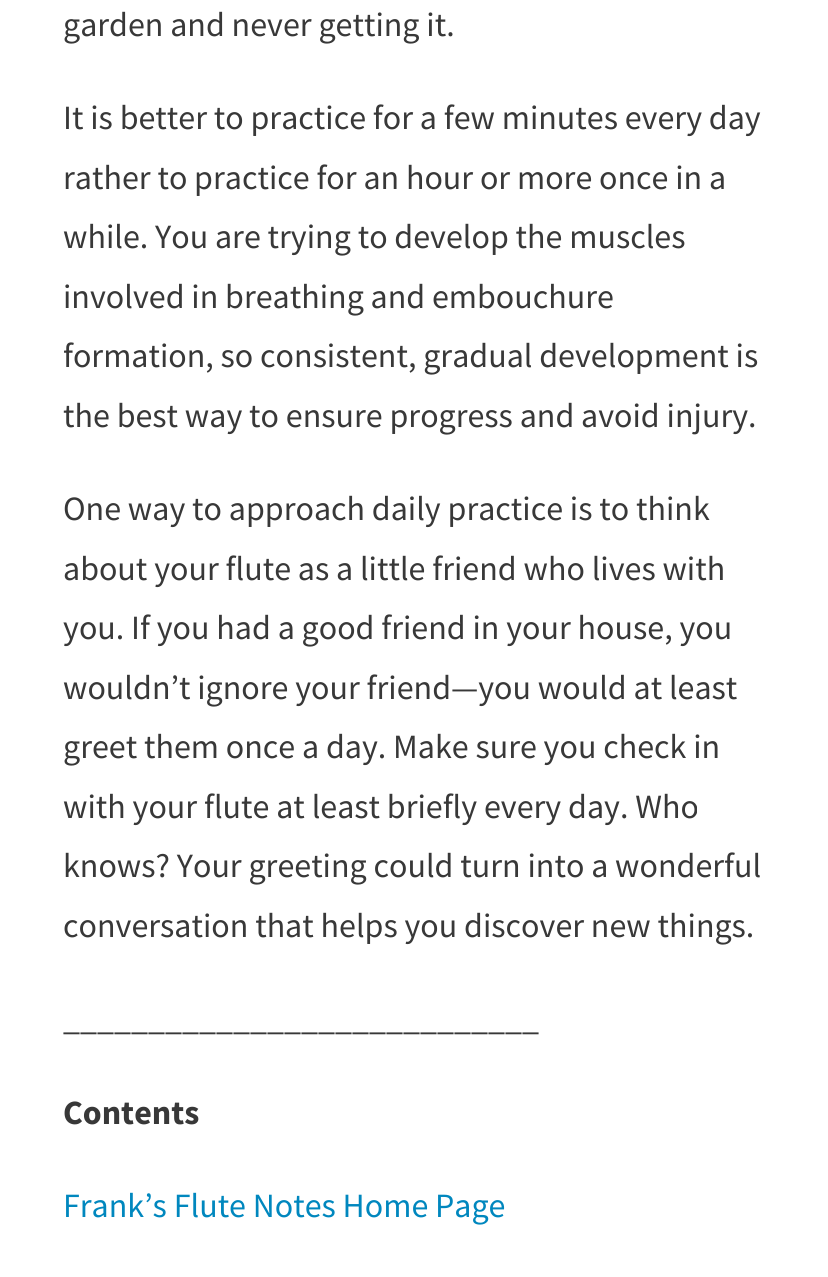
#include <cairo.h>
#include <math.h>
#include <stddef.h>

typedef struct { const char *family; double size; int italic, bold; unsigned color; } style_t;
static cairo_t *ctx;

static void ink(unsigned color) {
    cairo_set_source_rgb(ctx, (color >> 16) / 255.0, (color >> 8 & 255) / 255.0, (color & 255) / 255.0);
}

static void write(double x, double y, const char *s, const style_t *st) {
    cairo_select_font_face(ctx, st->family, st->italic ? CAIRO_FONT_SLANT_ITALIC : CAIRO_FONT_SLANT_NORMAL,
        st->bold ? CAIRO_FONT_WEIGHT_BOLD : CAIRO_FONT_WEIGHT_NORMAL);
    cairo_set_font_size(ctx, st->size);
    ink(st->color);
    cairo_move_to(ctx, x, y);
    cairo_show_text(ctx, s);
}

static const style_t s1 = {"Source Sans Pro", 34, 0, 0, 0x383838};
static const style_t s2 = {"Source Sans Pro", 34, 0, 1, 0x383838};
static const style_t s3 = {"Source Sans Pro", 34, 0, 0, 0x0087be};

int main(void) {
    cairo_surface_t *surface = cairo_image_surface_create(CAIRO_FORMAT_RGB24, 828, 1277);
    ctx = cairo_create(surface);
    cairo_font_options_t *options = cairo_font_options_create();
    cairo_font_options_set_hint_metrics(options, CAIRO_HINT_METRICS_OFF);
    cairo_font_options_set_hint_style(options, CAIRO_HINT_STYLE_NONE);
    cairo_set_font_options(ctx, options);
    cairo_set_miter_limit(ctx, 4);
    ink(0xffffff);
    cairo_paint(ctx);
    write(63, 36, "garden and never getting it.", &s1);
    write(63, 129, "It is better to practice for a few minutes every day", &s1);
    write(63, 189, "rather to practice for an hour or more once in a", &s1);
    write(63, 248, "while. You are trying to develop the muscles", &s1);
    write(63, 308, "involved in breathing and embouchure", &s1);
    write(63, 367, "formation, so consistent, gradual development is", &s1);
    write(63, 427, "the best way to ensure progress and avoid injury.", &s1);
    write(63, 520, "One way to approach daily practice is to think", &s1);
    write(63, 580, "about your flute as a little friend who lives with", &s1);
    write(63, 639, "you. If you had a good friend in your house, you", &s1);
    write(63, 699, "wouldn’t ignore your friend—you would at least", &s1);
    write(63, 758, "greet them once a day. Make sure you check in", &s1);
    write(63, 818, "with your flute at least briefly every day. Who", &s1);
    write(63, 877, "knows? Your greeting could turn into a wonderful", &s1);
    write(63, 937, "conversation that helps you discover new things.", &s1);
    write(63, 1030, "____________________________", &s1);
    write(63, 1124, "Contents", &s2);
    write(63, 1217, "Frank’s Flute Notes Home Page", &s3);
    cairo_surface_write_to_png(surface, "screenshot.png");
    cairo_font_options_destroy(options);
    cairo_destroy(ctx);
    cairo_surface_destroy(surface);
    return 0;
}
